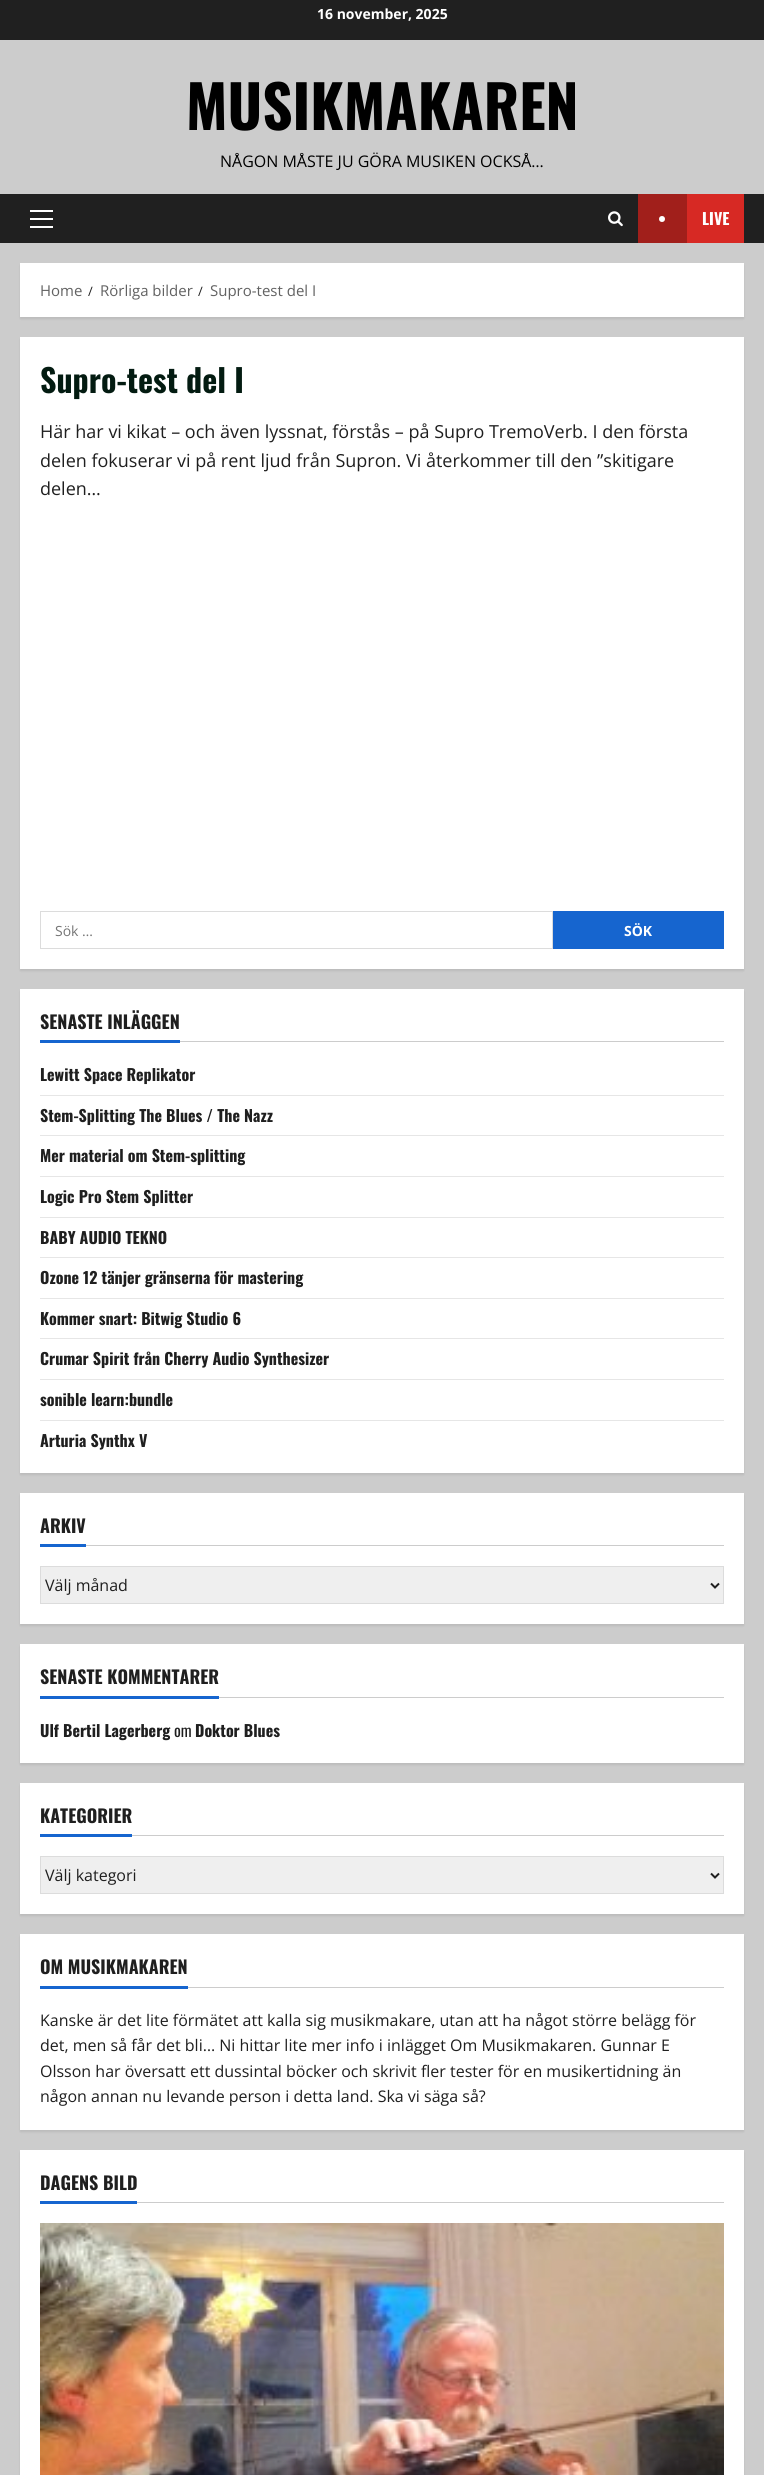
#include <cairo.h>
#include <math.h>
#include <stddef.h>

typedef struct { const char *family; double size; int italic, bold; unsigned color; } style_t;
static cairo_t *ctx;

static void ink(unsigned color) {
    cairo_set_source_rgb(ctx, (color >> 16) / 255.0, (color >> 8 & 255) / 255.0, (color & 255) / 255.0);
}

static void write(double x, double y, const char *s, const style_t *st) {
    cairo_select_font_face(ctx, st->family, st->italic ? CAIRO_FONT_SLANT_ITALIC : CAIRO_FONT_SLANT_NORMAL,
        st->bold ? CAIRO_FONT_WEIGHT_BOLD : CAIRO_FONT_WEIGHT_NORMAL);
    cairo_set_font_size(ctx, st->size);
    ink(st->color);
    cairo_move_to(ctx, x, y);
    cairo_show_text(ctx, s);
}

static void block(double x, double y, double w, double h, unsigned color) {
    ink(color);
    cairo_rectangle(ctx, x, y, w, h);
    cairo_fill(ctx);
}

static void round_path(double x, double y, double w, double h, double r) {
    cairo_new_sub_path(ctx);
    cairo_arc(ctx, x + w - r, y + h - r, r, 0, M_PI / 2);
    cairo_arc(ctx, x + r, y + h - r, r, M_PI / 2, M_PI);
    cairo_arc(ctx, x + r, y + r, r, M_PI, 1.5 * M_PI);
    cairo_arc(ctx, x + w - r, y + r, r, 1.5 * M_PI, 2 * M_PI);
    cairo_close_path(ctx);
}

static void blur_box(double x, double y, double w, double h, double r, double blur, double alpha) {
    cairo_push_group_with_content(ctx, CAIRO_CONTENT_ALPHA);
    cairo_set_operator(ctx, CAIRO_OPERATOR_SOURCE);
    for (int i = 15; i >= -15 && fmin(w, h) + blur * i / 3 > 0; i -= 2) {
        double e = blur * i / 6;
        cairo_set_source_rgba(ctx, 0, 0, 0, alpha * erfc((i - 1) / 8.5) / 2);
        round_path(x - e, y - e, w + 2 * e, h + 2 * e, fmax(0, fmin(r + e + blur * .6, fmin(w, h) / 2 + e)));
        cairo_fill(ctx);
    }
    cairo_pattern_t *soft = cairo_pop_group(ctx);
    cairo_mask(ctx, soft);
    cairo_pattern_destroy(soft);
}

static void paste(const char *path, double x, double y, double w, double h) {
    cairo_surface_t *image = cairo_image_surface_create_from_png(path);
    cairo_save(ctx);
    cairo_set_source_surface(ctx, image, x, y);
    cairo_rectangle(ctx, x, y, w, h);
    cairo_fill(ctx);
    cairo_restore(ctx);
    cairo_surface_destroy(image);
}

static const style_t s1 = {"Open Sans", 14, 0, 1, 0xffffff};
static const style_t s2 = {"Oswald", 59, 0, 1, 0x000000};
static const style_t s3 = {"Open Sans", 16, 0, 0, 0x000000};
static const style_t s4 = {"Oswald", 16, 0, 1, 0xffffff};
static const style_t s5 = {"Open Sans", 15, 0, 0, 0x626262};
static const style_t s6 = {"Open Sans", 13, 0, 0, 0x1f1f1f};
static const style_t s7 = {"Oswald", 32, 0, 1, 0x031b11};
static const style_t s8 = {"Open Sans", 18, 0, 0, 0x1f1f1f};
static const style_t s9 = {"Open Sans", 14, 0, 0, 0x757575};
static const style_t s10 = {"Oswald", 18, 0, 1, 0x1f1f1f};
static const style_t s11 = {"Oswald", 16, 0, 1, 0x1f1f1f};
static const style_t s12 = {"Open Sans", 16, 0, 0, 0x1f1f1f};
static const style_t s13 = {"Oswald", 16, 0, 0, 0x1f1f1f};

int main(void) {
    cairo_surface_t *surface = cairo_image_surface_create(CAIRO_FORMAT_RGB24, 764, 2475);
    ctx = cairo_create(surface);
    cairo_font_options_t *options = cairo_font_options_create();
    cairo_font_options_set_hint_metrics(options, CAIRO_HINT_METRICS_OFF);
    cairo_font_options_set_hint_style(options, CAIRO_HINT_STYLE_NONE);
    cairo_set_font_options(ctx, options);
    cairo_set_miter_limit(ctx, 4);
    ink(0xcccccc);
    cairo_paint(ctx);
    block(0, 0, 764, 40, 0x202020);
    write(317, 19, "16 november, 2025", &s1);
    write(186, 130, "MUSIKMAKAREN", &s2);
    write(220, 167, "NÅGON MÅSTE JU GÖRA MUSIKEN OCKSÅ…", &s3);
    block(0, 194, 764, 49, 0x202020);
    block(30, 218, 23, 2, 0xffffff);
    block(30, 210, 23, 2, 0xffffff);
    block(30, 226, 23, 2, 0xffffff);
    paste("pic1.png", 608, 211, 15, 16);
    block(687, 194, 57, 49, 0xd72924);
    block(638, 194, 49, 49, 0xa11f1b);
    ink(0xffffff);
    cairo_arc(ctx, 662, 219, 3, 0, 2 * M_PI);
    cairo_fill(ctx);
    write(702, 225, "LIVE", &s4);
    ink(0x000000);
    blur_box(20, 265, 724, 54, 0, 1, 0.08);
    block(20, 263, 724, 54, 0xffffff);
    write(40, 296, "Home", &s5);
    write(88, 296, "/", &s6);
    write(100, 296, "Rörliga bilder", &s5);
    write(198, 296, "/", &s6);
    write(210, 296, "Supro-test del I", &s5);
    ink(0x000000);
    blur_box(20, 339, 724, 554, 0, 1, 0.08);
    block(20, 337, 724, 554, 0xffffff);
    write(40, 393, "Supro-test del I", &s7);
    write(40, 438, "Här har vi kikat – och även lyssnat, förstås – på Supro TremoVerb. I den första", &s8);
    write(40, 467, "delen fokuserar vi på rent ljud från Supron. Vi återkommer till den ”skitigare", &s8);
    write(40, 495, "delen…", &s8);
    ink(0x000000);
    blur_box(20, 893, 724, 78, 0, 1, 0.08);
    block(20, 891, 724, 78, 0xffffff);
    cairo_rectangle(ctx, 40.5, 911.5, 512, 37);
    ink(0xdcdcdc);
    cairo_set_line_width(ctx, 1);
    cairo_stroke(ctx);
    write(55, 936, "Sök …", &s9);
    block(553, 911, 171, 38, 0x1665cf);
    write(624, 936, "SÖK", &s1);
    ink(0x000000);
    blur_box(20, 991, 724, 484, 0, 1, 0.08);
    block(20, 989, 724, 484, 0xffffff);
    block(180, 1041, 544, 1, 0xcccccc);
    write(40, 1029, "SENASTE INLÄGGEN", &s10);
    block(40, 1040, 140, 3, 0x1665cf);
    block(40, 1095, 684, 1, 0xe6e6e6);
    write(40, 1081, "Lewitt Space Replikator", &s11);
    block(40, 1135, 684, 1, 0xe6e6e6);
    write(40, 1122, "Stem-Splitting The Blues / The Nazz", &s11);
    block(40, 1176, 684, 1, 0xe6e6e6);
    write(40, 1162, "Mer material om Stem-splitting", &s11);
    block(40, 1217, 684, 1, 0xe6e6e6);
    write(40, 1203, "Logic Pro Stem Splitter", &s11);
    block(40, 1257, 684, 1, 0xe6e6e6);
    write(40, 1244, "BABY AUDIO TEKNO", &s11);
    block(40, 1298, 684, 1, 0xe6e6e6);
    write(40, 1284, "Ozone 12 tänjer gränserna för mastering", &s11);
    block(40, 1338, 684, 1, 0xe6e6e6);
    write(40, 1325, "Kommer snart: Bitwig Studio 6", &s11);
    block(40, 1379, 684, 1, 0xe6e6e6);
    write(40, 1365, "Crumar Spirit från Cherry Audio Synthesizer", &s11);
    block(40, 1420, 684, 1, 0xe6e6e6);
    write(40, 1406, "sonible learn:bundle", &s11);
    write(40, 1447, "Arturia Synthx V", &s11);
    ink(0x000000);
    blur_box(20, 1495, 724, 131, 0, 1, 0.08);
    block(20, 1493, 724, 131, 0xffffff);
    block(86, 1545, 638, 1, 0xcccccc);
    write(40, 1533, "ARKIV", &s10);
    block(40, 1544, 46, 3, 0x1665cf);
    ink(0xefefef);
    cairo_rectangle(ctx, 40.5, 1566.5, 683, 37);
    cairo_fill_preserve(ctx);
    ink(0xdcdcdc);
    cairo_stroke(ctx);
    cairo_new_path(ctx);
    cairo_move_to(ctx, 711, 1583.5);
    cairo_line_to(ctx, 715, 1587.5);
    cairo_line_to(ctx, 719, 1583.5);
    ink(0x1f1f1f);
    cairo_set_line_width(ctx, 2);
    cairo_stroke(ctx);
    write(45, 1591, "Välj månad", &s12);
    ink(0x000000);
    blur_box(20, 1646, 724, 119, 0, 1, 0.08);
    block(20, 1644, 724, 119, 0xffffff);
    block(219, 1697, 505, 1, 0xcccccc);
    write(40, 1684, "SENASTE KOMMENTARER", &s10);
    block(40, 1696, 179, 3, 0x1665cf);
    write(40, 1737, "Ulf Bertil Lagerberg", &s11);
    write(174, 1737, "om", &s13);
    write(195, 1737, "Doktor Blues", &s11);
    ink(0x000000);
    blur_box(20, 1785, 724, 131, 0, 1, 0.08);
    block(20, 1783, 724, 131, 0xffffff);
    block(132, 1835, 592, 1, 0xcccccc);
    write(40, 1823, "KATEGORIER", &s10);
    block(40, 1834, 92, 3, 0x1665cf);
    ink(0xefefef);
    cairo_rectangle(ctx, 40.5, 1856.5, 683, 37);
    cairo_fill_preserve(ctx);
    ink(0xdcdcdc);
    cairo_set_line_width(ctx, 1);
    cairo_stroke(ctx);
    cairo_new_path(ctx);
    cairo_move_to(ctx, 711, 1873.5);
    cairo_line_to(ctx, 715, 1877.5);
    cairo_line_to(ctx, 719, 1873.5);
    ink(0x1f1f1f);
    cairo_set_line_width(ctx, 2);
    cairo_stroke(ctx);
    write(45, 1881, "Välj kategori", &s12);
    ink(0x000000);
    blur_box(20, 1936, 724, 196, 0, 1, 0.08);
    block(20, 1934, 724, 196, 0xffffff);
    block(188, 1987, 536, 1, 0xcccccc);
    write(40, 1974, "OM MUSIKMAKAREN", &s10);
    block(40, 1986, 148, 3, 0x1665cf);
    write(40, 2026, "Kanske är det lite förmätet att kalla sig musikmakare, utan att ha något större belägg för", &s12);
    write(40, 2051, "det, men så får det bli… Ni hittar lite mer info i inlägget Om Musikmakaren. Gunnar E", &s12);
    write(40, 2077, "Olsson har översatt ett dussintal böcker och skrivit fler tester för en musikertidning än", &s12);
    write(40, 2102, "någon annan nu levande person i detta land. Ska vi säga så?", &s12);
    ink(0x000000);
    blur_box(20, 2152, 724, 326, 0, 1, 0.08);
    block(20, 2150, 724, 325, 0xffffff);
    block(137, 2202, 587, 1, 0xcccccc);
    write(40, 2190, "DAGENS BILD", &s10);
    block(40, 2201, 97, 3, 0x1665cf);
    paste("pic2.png", 40, 2223, 684, 252);
    cairo_surface_write_to_png(surface, "screenshot.png");
    cairo_font_options_destroy(options);
    cairo_destroy(ctx);
    cairo_surface_destroy(surface);
    return 0;
}
